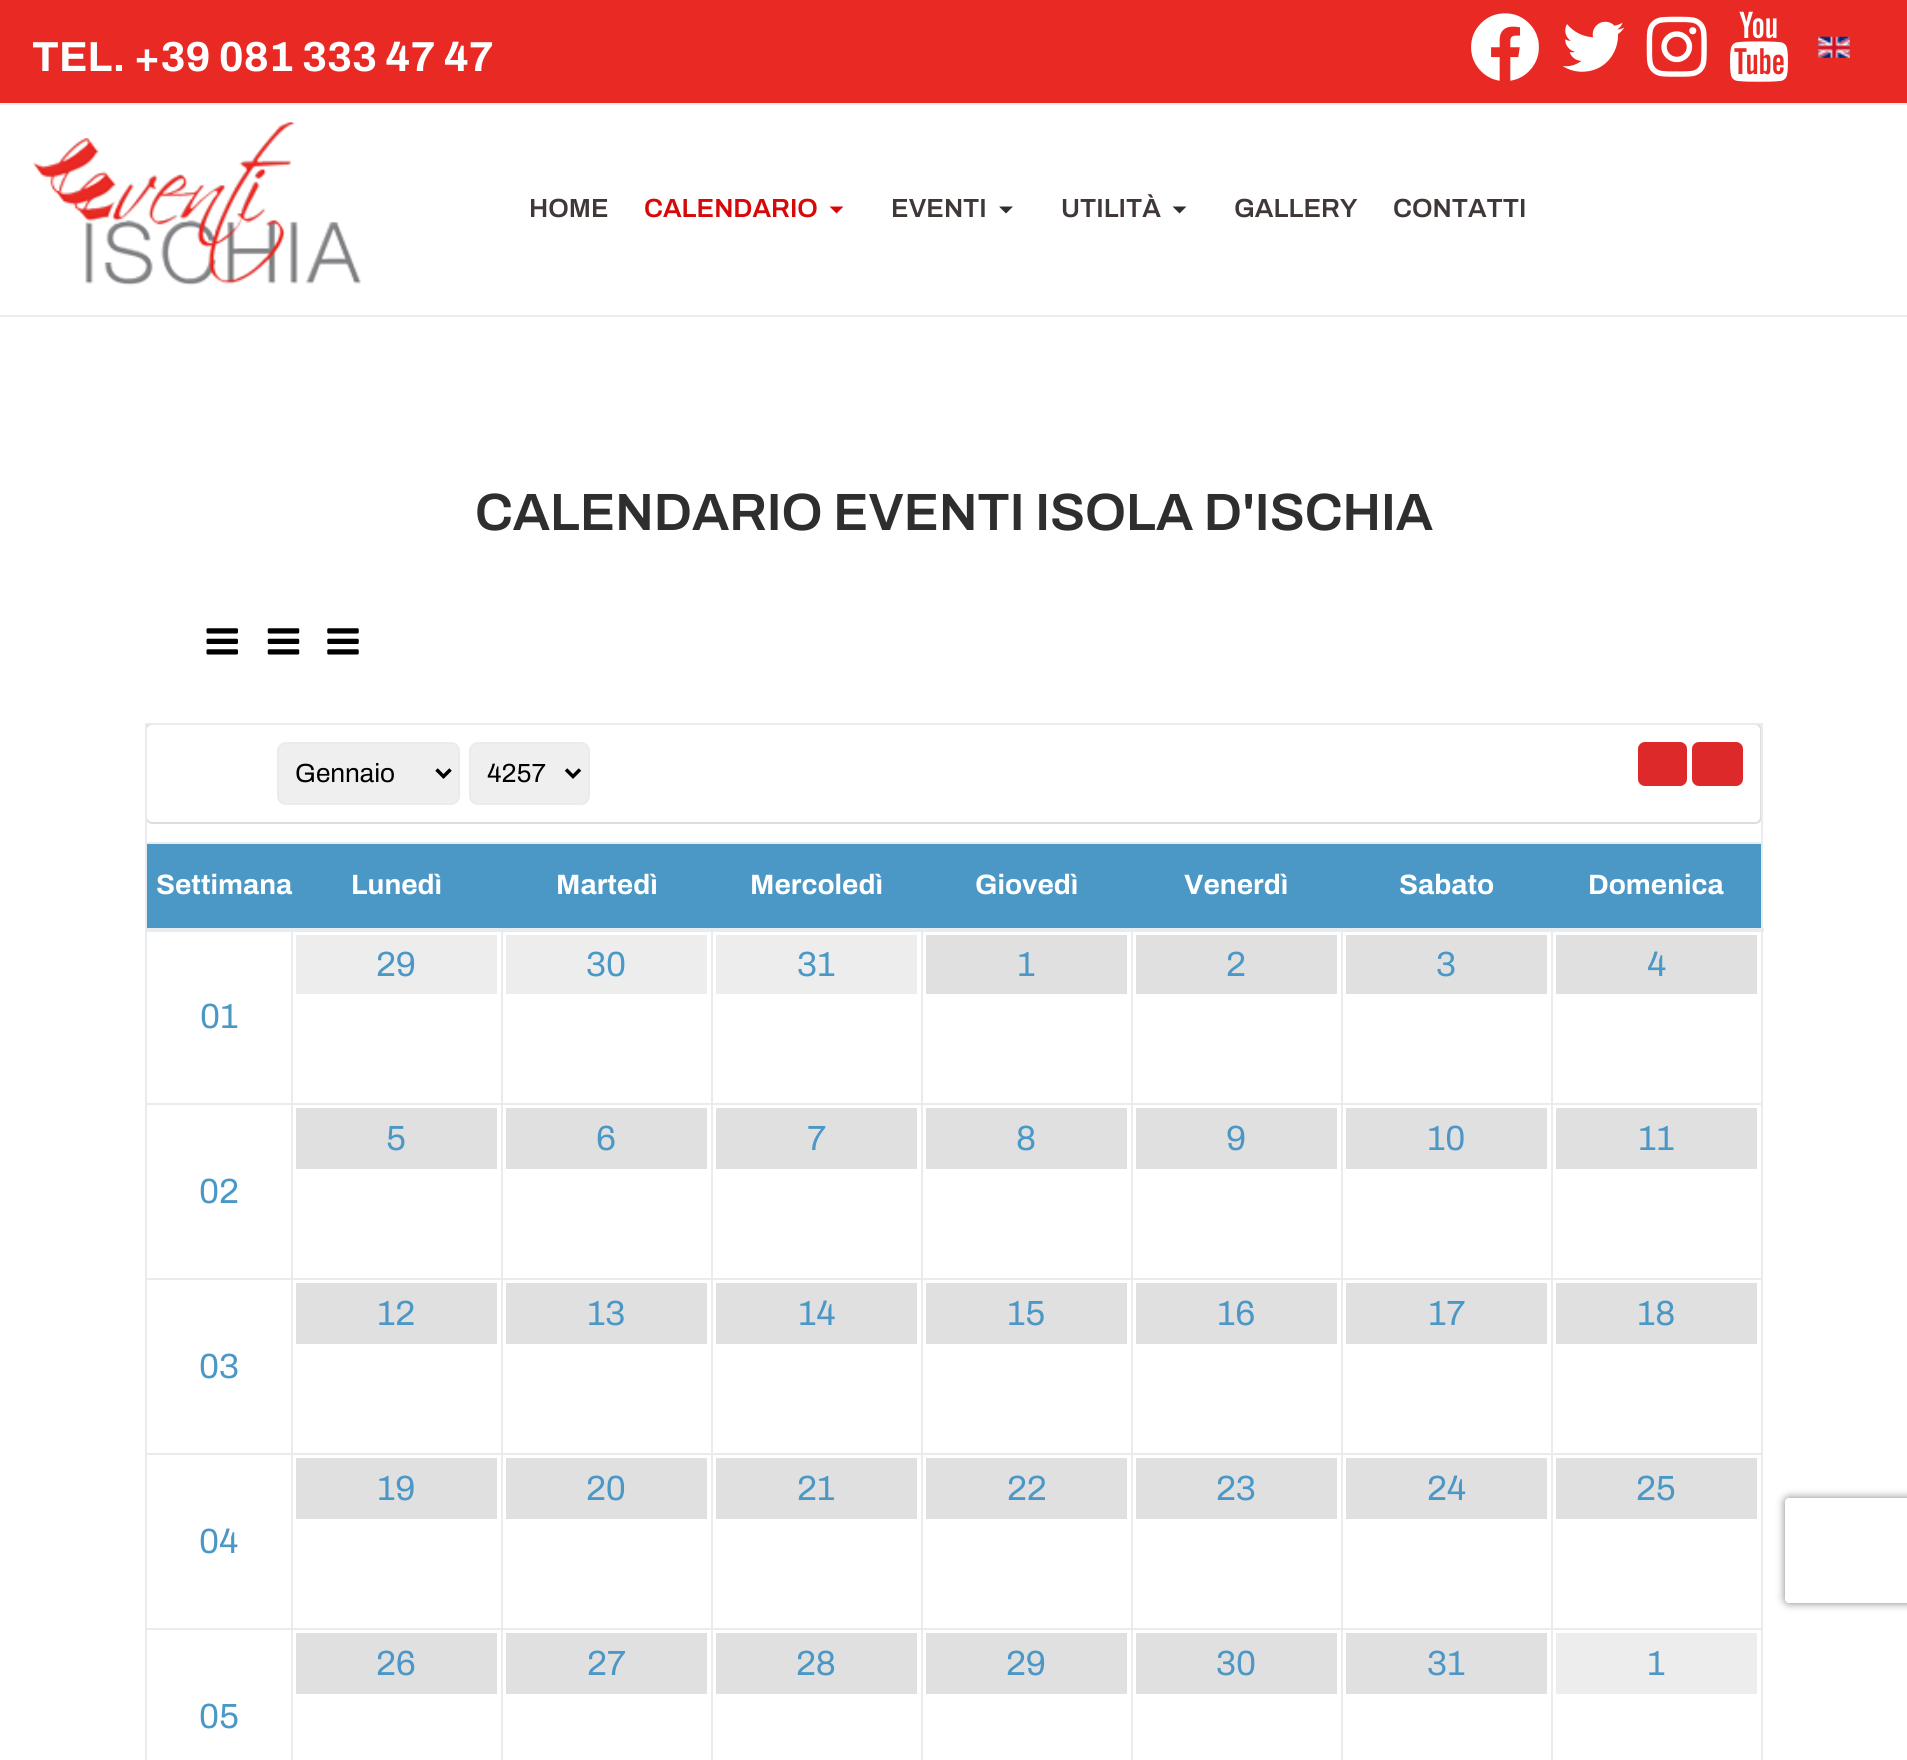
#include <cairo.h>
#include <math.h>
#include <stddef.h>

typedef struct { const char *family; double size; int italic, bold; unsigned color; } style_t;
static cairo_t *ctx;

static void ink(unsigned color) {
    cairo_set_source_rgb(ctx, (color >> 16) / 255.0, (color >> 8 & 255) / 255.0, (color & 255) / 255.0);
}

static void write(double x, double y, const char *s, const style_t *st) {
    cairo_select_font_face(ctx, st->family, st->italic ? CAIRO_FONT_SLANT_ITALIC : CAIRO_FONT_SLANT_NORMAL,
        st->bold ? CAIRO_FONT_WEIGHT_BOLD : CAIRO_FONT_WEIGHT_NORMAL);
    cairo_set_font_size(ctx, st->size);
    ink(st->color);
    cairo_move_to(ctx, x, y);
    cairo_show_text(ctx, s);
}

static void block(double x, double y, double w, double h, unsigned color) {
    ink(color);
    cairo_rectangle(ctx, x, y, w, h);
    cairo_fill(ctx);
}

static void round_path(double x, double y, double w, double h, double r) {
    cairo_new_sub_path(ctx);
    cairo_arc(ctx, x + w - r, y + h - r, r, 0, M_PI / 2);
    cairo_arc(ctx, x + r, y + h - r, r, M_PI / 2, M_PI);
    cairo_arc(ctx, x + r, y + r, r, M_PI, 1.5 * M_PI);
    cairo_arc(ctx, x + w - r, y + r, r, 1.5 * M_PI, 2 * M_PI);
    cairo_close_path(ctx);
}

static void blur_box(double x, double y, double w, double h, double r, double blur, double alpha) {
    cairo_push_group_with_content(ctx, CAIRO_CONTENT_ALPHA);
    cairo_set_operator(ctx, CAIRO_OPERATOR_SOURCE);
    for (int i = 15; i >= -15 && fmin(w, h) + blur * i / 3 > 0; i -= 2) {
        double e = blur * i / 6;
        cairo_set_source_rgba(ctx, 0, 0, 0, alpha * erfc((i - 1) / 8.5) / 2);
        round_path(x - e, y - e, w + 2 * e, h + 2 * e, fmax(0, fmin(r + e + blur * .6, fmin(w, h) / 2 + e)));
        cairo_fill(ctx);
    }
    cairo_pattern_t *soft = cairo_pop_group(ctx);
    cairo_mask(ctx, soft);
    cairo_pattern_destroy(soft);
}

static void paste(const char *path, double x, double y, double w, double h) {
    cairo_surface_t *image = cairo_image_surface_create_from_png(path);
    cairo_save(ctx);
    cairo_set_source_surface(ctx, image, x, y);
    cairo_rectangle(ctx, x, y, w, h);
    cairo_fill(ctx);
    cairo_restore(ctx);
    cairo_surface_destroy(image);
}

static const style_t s1 = {"Archivo", 42, 0, 1, 0xffffff};
static const style_t s2 = {"Archivo SemiBold", 26.25, 0, 0, 0x3f3836};
static const style_t s3 = {"Archivo SemiBold", 26.25, 0, 0, 0xd60808};
static const style_t s4 = {"Archivo SemiBold", 52.5, 0, 0, 0x2e2e2e};
static const style_t s5 = {"Archivo", 26.25, 0, 0, 0x000000};
static const style_t s6 = {"Archivo", 28, 0, 1, 0xffffff};
static const style_t s7 = {"Archivo", 35, 0, 0, 0x4b97c6};

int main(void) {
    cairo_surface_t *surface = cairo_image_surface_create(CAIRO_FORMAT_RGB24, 1907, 1760);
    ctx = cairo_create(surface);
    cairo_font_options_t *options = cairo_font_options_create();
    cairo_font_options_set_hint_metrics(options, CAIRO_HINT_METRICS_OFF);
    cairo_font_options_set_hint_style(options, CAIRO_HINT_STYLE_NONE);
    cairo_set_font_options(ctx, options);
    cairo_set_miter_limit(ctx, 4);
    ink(0xffffff);
    cairo_paint(ctx);
    block(0, 315, 1907, 2, 0xebebeb);
    block(0, 0, 1907, 103, 0xe82924);
    block(0, 103, 1907, 2, 0xebebeb);
    write(32, 71, "TEL. +39 081 333 47 47", &s1);
    paste("pic1.png", 1471, 13, 68, 68);
    paste("pic2.png", 1562, 21, 63, 51);
    paste("pic3.png", 1646, 16, 61, 61);
    paste("pic4.png", 1730, 11, 58, 71);
    paste("pic5.png", 1818, 36, 32, 22);
    paste("pic6.png", 33, 121, 328, 165);
    write(529, 217, "HOME", &s2);
    write(644, 217, "CALENDARIO", &s3);
    cairo_new_path(ctx);
    cairo_move_to(ctx, 829.5, 206.5);
    cairo_line_to(ctx, 843.5, 206.5);
    cairo_line_to(ctx, 836.5, 213.5);
    cairo_close_path(ctx);
    cairo_fill(ctx);
    write(891, 217, "EVENTI", &s2);
    ink(0x2e2e2e);
    cairo_new_path(ctx);
    cairo_move_to(ctx, 999, 206.5);
    cairo_line_to(ctx, 1013, 206.5);
    cairo_line_to(ctx, 1006, 213.5);
    cairo_close_path(ctx);
    cairo_fill(ctx);
    write(1061, 217, "UTILITÀ", &s2);
    ink(0x2e2e2e);
    cairo_new_path(ctx);
    cairo_move_to(ctx, 1172.5, 206.5);
    cairo_line_to(ctx, 1186.5, 206.5);
    cairo_line_to(ctx, 1179.5, 213.5);
    cairo_close_path(ctx);
    cairo_fill(ctx);
    write(1234, 217, "GALLERY", &s2);
    write(1393, 217, "CONTATTI", &s2);
    write(475, 530, "CALENDARIO EVENTI ISOLA D'ISCHIA", &s4);
    paste("pic7.png", 206, 628, 32, 27);
    paste("pic8.png", 267, 628, 33, 27);
    paste("pic9.png", 327, 628, 32, 27);
    round_path(146, 724, 1615, 99, 6);
    ink(0xdddddd);
    cairo_stroke(ctx);
    block(145, 723, 1617, 2, 0xe9ecef);
    block(1761, 723, 2, 1037, 0xe9ecef);
    block(145, 723, 2, 1037, 0xe9ecef);
    ink(0xefefef);
    round_path(278, 743, 181, 61, 8);
    cairo_fill_preserve(ctx);
    ink(0xebebeb);
    cairo_stroke(ctx);
    cairo_new_path(ctx);
    cairo_move_to(ctx, 436.5, 769.5);
    cairo_line_to(ctx, 443.5, 776.5);
    cairo_line_to(ctx, 450.5, 769.5);
    ink(0x000000);
    cairo_set_line_width(ctx, 3.5);
    cairo_stroke(ctx);
    write(295, 782, "Gennaio", &s5);
    ink(0xefefef);
    round_path(470, 743, 119, 61, 8);
    cairo_fill_preserve(ctx);
    ink(0xebebeb);
    cairo_set_line_width(ctx, 2);
    cairo_stroke(ctx);
    cairo_new_path(ctx);
    cairo_move_to(ctx, 566, 769.5);
    cairo_line_to(ctx, 573, 776.5);
    cairo_line_to(ctx, 580, 769.5);
    ink(0x000000);
    cairo_set_line_width(ctx, 3.5);
    cairo_stroke(ctx);
    write(487, 782, "4257", &s5);
    ink(0xdd2929);
    round_path(1638, 742, 49, 44, 7);
    cairo_fill(ctx);
    round_path(1692, 742, 51, 44, 7);
    cairo_fill(ctx);
    block(145, 842, 1617, 2, 0xe9ecef);
    block(147, 844, 1614, 84, 0x4b97c6);
    write(156, 894, "Settimana", &s6);
    write(351, 894, "Lunedì", &s6);
    write(556, 894, "Martedì", &s6);
    write(750, 894, "Mercoledì", &s6);
    write(975, 894, "Giovedì", &s6);
    write(1184, 894, "Venerdì", &s6);
    write(1399, 894, "Sabato", &s6);
    block(145, 1103, 1617, 2, 0xe9ecef);
    block(145, 1278, 1617, 2, 0xe9ecef);
    block(145, 1453, 1617, 2, 0xe9ecef);
    block(145, 1628, 1617, 2, 0xe9ecef);
    block(291, 928, 2, 832, 0xe9ecef);
    block(501, 928, 2, 832, 0xe9ecef);
    block(711, 928, 2, 832, 0xe9ecef);
    block(921, 928, 2, 832, 0xe9ecef);
    block(1131, 928, 2, 832, 0xe9ecef);
    block(1341, 928, 2, 832, 0xe9ecef);
    block(1551, 928, 2, 832, 0xe9ecef);
    block(145, 928, 1619, 4, 0xe9ecef);
    write(1588, 894, "Domenica", &s6);
    block(296, 935, 201, 59, 0xededed);
    write(376, 976, "29", &s7);
    block(506, 935, 201, 59, 0xededed);
    write(586, 976, "30", &s7);
    block(716, 935, 201, 59, 0xededed);
    write(797, 976, "31", &s7);
    block(926, 935, 201, 59, 0xe0e0e0);
    write(1017, 976, "1", &s7);
    block(1136, 935, 201, 59, 0xe0e0e0);
    write(1226, 976, "2", &s7);
    block(1346, 935, 201, 59, 0xe0e0e0);
    write(1436, 976, "3", &s7);
    block(1556, 935, 201, 59, 0xe0e0e0);
    write(1647, 976, "4", &s7);
    write(200, 1028, "01", &s7);
    block(296, 1108, 201, 61, 0xe0e0e0);
    write(386, 1150, "5", &s7);
    block(506, 1108, 201, 61, 0xe0e0e0);
    write(596, 1150, "6", &s7);
    block(716, 1108, 201, 61, 0xe0e0e0);
    write(807, 1150, "7", &s7);
    block(926, 1108, 201, 61, 0xe0e0e0);
    write(1016, 1150, "8", &s7);
    block(1136, 1108, 201, 61, 0xe0e0e0);
    write(1226, 1150, "9", &s7);
    block(1346, 1108, 201, 61, 0xe0e0e0);
    write(1427, 1150, "10", &s7);
    block(1556, 1108, 201, 61, 0xe0e0e0);
    write(1638, 1150, "11", &s7);
    write(199, 1203, "02", &s7);
    block(296, 1283, 201, 61, 0xe0e0e0);
    write(377, 1325, "12", &s7);
    block(506, 1283, 201, 61, 0xe0e0e0);
    write(587, 1325, "13", &s7);
    block(716, 1283, 201, 61, 0xe0e0e0);
    write(798, 1325, "14", &s7);
    block(926, 1283, 201, 61, 0xe0e0e0);
    write(1007, 1325, "15", &s7);
    block(1136, 1283, 201, 61, 0xe0e0e0);
    write(1217, 1325, "16", &s7);
    block(1346, 1283, 201, 61, 0xe0e0e0);
    write(1428, 1325, "17", &s7);
    block(1556, 1283, 201, 61, 0xe0e0e0);
    write(1637, 1325, "18", &s7);
    write(199, 1378, "03", &s7);
    block(296, 1458, 201, 61, 0xe0e0e0);
    write(377, 1500, "19", &s7);
    block(506, 1458, 201, 61, 0xe0e0e0);
    write(586, 1500, "20", &s7);
    block(716, 1458, 201, 61, 0xe0e0e0);
    write(797, 1500, "21", &s7);
    block(926, 1458, 201, 61, 0xe0e0e0);
    write(1007, 1500, "22", &s7);
    block(1136, 1458, 201, 61, 0xe0e0e0);
    write(1216, 1500, "23", &s7);
    block(1346, 1458, 201, 61, 0xe0e0e0);
    write(1427, 1500, "24", &s7);
    block(1556, 1458, 201, 61, 0xe0e0e0);
    write(1636, 1500, "25", &s7);
    write(199, 1553, "04", &s7);
    block(296, 1633, 201, 61, 0xe0e0e0);
    write(376, 1675, "26", &s7);
    block(506, 1633, 201, 61, 0xe0e0e0);
    write(587, 1675, "27", &s7);
    block(716, 1633, 201, 61, 0xe0e0e0);
    write(796, 1675, "28", &s7);
    block(926, 1633, 201, 61, 0xe0e0e0);
    write(1006, 1675, "29", &s7);
    block(1136, 1633, 201, 61, 0xe0e0e0);
    write(1216, 1675, "30", &s7);
    block(1346, 1633, 201, 61, 0xe0e0e0);
    write(1427, 1675, "31", &s7);
    block(1556, 1633, 201, 61, 0xededed);
    write(1647, 1675, "1", &s7);
    write(199, 1728, "05", &s7);
    cairo_save(ctx);
    cairo_set_fill_rule(ctx, CAIRO_FILL_RULE_EVEN_ODD);
    cairo_new_path(ctx);
    cairo_move_to(ctx, 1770, 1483);
    cairo_line_to(ctx, 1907, 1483);
    cairo_line_to(ctx, 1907, 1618);
    cairo_line_to(ctx, 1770, 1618);
    cairo_close_path(ctx);
    cairo_move_to(ctx, 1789, 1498);
    cairo_line_to(ctx, 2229, 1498);
    cairo_curve_to(ctx, 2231, 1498, 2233, 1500, 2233, 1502);
    cairo_line_to(ctx, 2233, 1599);
    cairo_curve_to(ctx, 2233, 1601, 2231, 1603, 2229, 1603);
    cairo_line_to(ctx, 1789, 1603);
    cairo_curve_to(ctx, 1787, 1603, 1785, 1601, 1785, 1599);
    cairo_line_to(ctx, 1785, 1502);
    cairo_curve_to(ctx, 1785, 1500, 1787, 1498, 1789, 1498);
    cairo_close_path(ctx);
    cairo_clip(ctx);
    ink(0x808080);
    blur_box(1785, 1498, 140, 105, 4, 4.5, 1);
    cairo_restore(ctx);
    cairo_surface_write_to_png(surface, "screenshot.png");
    cairo_font_options_destroy(options);
    cairo_destroy(ctx);
    cairo_surface_destroy(surface);
    return 0;
}
